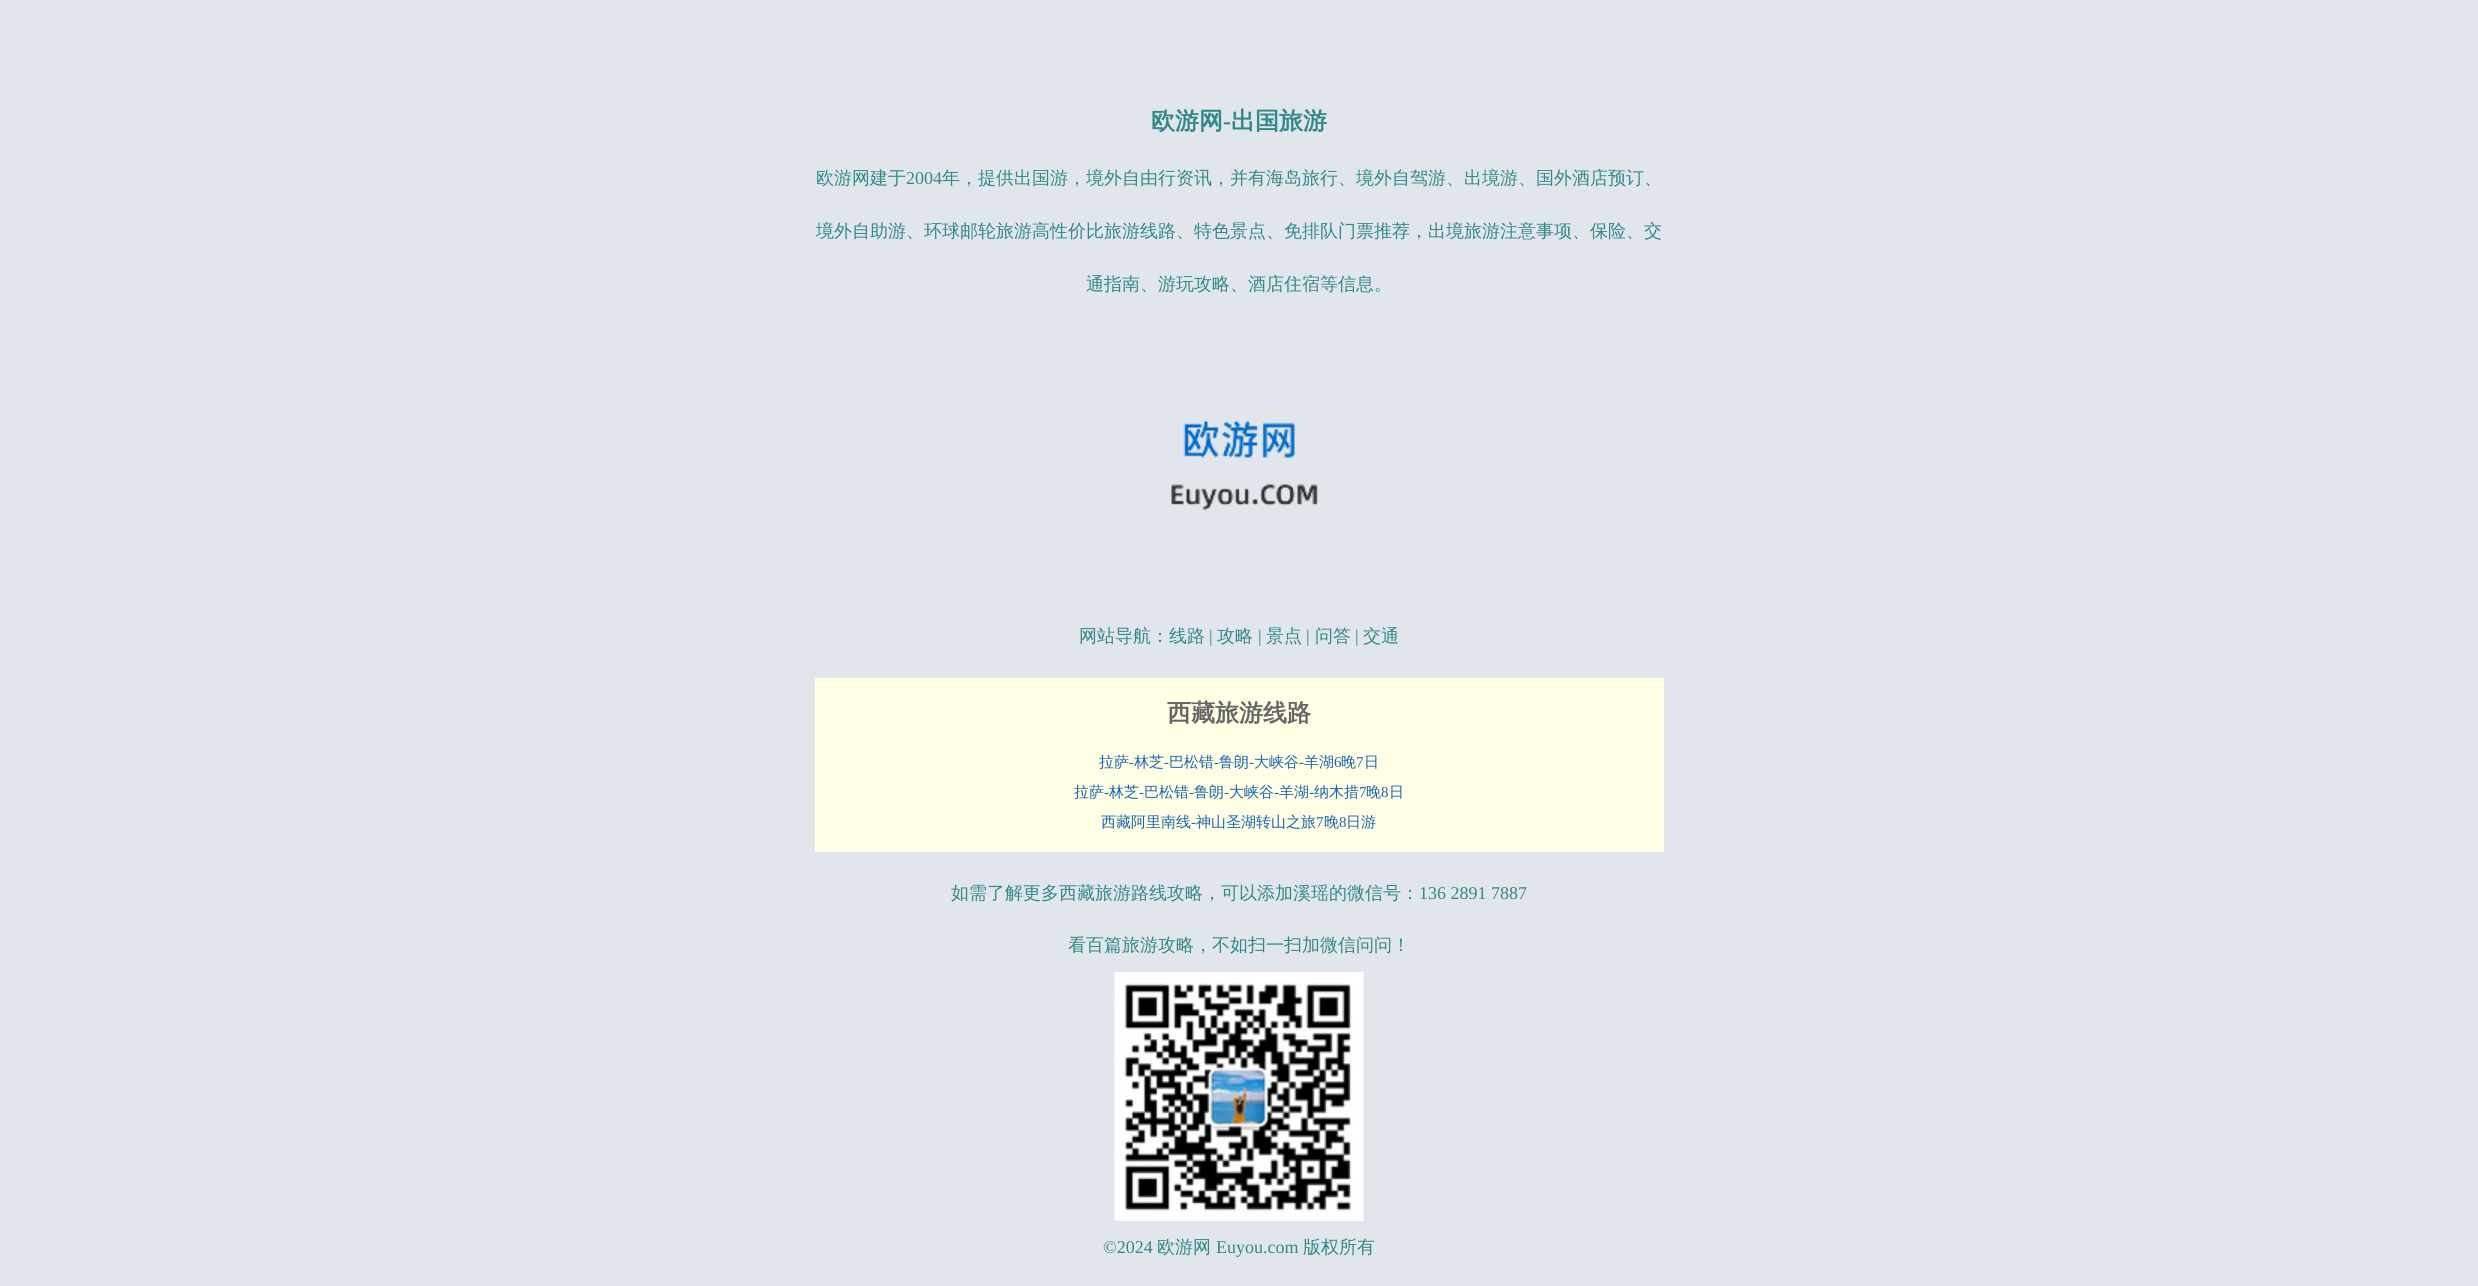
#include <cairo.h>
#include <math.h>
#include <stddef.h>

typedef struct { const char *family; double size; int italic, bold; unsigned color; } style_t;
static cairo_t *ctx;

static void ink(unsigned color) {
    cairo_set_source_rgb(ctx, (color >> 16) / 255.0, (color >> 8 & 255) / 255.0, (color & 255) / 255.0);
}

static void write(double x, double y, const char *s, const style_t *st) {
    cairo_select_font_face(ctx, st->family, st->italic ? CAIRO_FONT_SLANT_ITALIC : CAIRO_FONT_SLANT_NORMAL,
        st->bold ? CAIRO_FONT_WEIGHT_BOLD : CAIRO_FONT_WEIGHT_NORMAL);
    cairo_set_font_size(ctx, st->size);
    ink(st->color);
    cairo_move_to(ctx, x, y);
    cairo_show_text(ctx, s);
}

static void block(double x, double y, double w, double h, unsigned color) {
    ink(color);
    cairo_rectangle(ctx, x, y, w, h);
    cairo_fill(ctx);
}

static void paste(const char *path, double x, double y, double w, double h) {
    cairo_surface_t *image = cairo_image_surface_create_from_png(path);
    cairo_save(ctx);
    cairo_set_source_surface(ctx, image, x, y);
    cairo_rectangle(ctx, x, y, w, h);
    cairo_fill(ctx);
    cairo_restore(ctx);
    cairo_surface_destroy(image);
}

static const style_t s1 = {"WenQuanYi Zen Hei", 24, 0, 1, 0x328987};
static const style_t s2 = {"Liberation Serif", 24, 0, 1, 0x328987};
static const style_t s3 = {"WenQuanYi Zen Hei Medium", 18, 0, 0, 0x328987};
static const style_t s4 = {"Liberation Serif", 18, 0, 0, 0x328987};
static const style_t s5 = {"WenQuanYi Zen Hei", 24, 0, 1, 0x666666};
static const style_t s6 = {"WenQuanYi Zen Hei Medium", 15, 0, 0, 0x1a65b0};
static const style_t s7 = {"Liberation Serif", 15, 0, 0, 0x1a65b0};

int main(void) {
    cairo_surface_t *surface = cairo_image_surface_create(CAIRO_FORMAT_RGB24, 2478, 1286);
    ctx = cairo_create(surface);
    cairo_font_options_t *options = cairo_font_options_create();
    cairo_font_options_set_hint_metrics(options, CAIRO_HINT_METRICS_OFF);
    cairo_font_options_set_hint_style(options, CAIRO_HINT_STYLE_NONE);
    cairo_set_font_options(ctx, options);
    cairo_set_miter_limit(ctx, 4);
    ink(0xe1e6ec);
    cairo_paint(ctx);
    write(1151, 129, "欧游网", &s1);
    write(1223, 129, "-", &s2);
    write(1231, 129, "出国旅游", &s1);
    write(816, 184, "欧游网建于", &s3);
    write(906, 184, "2004", &s4);
    write(942, 184, "年，提供出国游，境外自由行资讯，并有海岛旅行、境外自驾游、出境游、国外酒店预订、", &s3);
    write(816, 237, "境外自助游、环球邮轮旅游高性价比旅游线路、特色景点、免排队门票推荐，出境旅游注意事项、保险、交", &s3);
    write(1086, 290, "通指南、游玩攻略、酒店住宿等信息。", &s3);
    paste("pic1.png", 1171, 421, 147, 90);
    write(1079, 642, "网站导航：线路", &s3);
    write(1209, 642, "|", &s4);
    write(1217, 642, "攻略", &s3);
    write(1258, 642, "|", &s4);
    write(1266, 642, "景点", &s3);
    write(1306, 642, "|", &s4);
    write(1315, 642, "问答", &s3);
    write(1355, 642, "|", &s4);
    write(1363, 642, "交通", &s3);
    block(815, 678, 849, 174, 0xffffe6);
    write(1167, 721, "西藏旅游线路", &s5);
    write(1099, 767, "拉萨", &s6);
    write(1129, 767, "-", &s7);
    write(1134, 767, "林芝", &s6);
    write(1164, 767, "-", &s7);
    write(1169, 767, "巴松错", &s6);
    write(1214, 767, "-", &s7);
    write(1219, 767, "鲁朗", &s6);
    write(1249, 767, "-", &s7);
    write(1254, 767, "大峡谷", &s6);
    write(1299, 767, "-", &s7);
    write(1304, 767, "羊湖", &s6);
    write(1334, 767, "6", &s7);
    write(1341, 767, "晚", &s6);
    write(1356, 767, "7", &s7);
    write(1364, 767, "日", &s6);
    write(1074, 797, "拉萨", &s6);
    write(1104, 797, "-", &s7);
    write(1109, 797, "林芝", &s6);
    write(1139, 797, "-", &s7);
    write(1144, 797, "巴松错", &s6);
    write(1189, 797, "-", &s7);
    write(1194, 797, "鲁朗", &s6);
    write(1224, 797, "-", &s7);
    write(1229, 797, "大峡谷", &s6);
    write(1274, 797, "-", &s7);
    write(1279, 797, "羊湖", &s6);
    write(1309, 797, "-", &s7);
    write(1314, 797, "纳木措", &s6);
    write(1359, 797, "7", &s7);
    write(1366, 797, "晚", &s6);
    write(1381, 797, "8", &s7);
    write(1389, 797, "日", &s6);
    write(1101, 827, "西藏阿里南线", &s6);
    write(1191, 827, "-", &s7);
    write(1196, 827, "神山圣湖转山之旅", &s6);
    write(1316, 827, "7", &s7);
    write(1324, 827, "晚", &s6);
    write(1339, 827, "8", &s7);
    write(1346, 827, "日游", &s6);
    write(951, 899, "如需了解更多西藏旅游路线攻略，可以添加溪瑶的微信号：", &s3);
    write(1419, 899, "136 2891 7887", &s4);
    write(1068, 951, "看百篇旅游攻略，不如扫一扫加微信问问！", &s3);
    paste("pic2.png", 1114, 972, 250, 249);
    write(1103, 1253, "©2024", &s4);
    write(1157, 1253, "欧游网", &s3);
    write(1216, 1253, "Euyou.com", &s4);
    write(1303, 1253, "版权所有", &s3);
    cairo_surface_write_to_png(surface, "screenshot.png");
    cairo_font_options_destroy(options);
    cairo_destroy(ctx);
    cairo_surface_destroy(surface);
    return 0;
}
